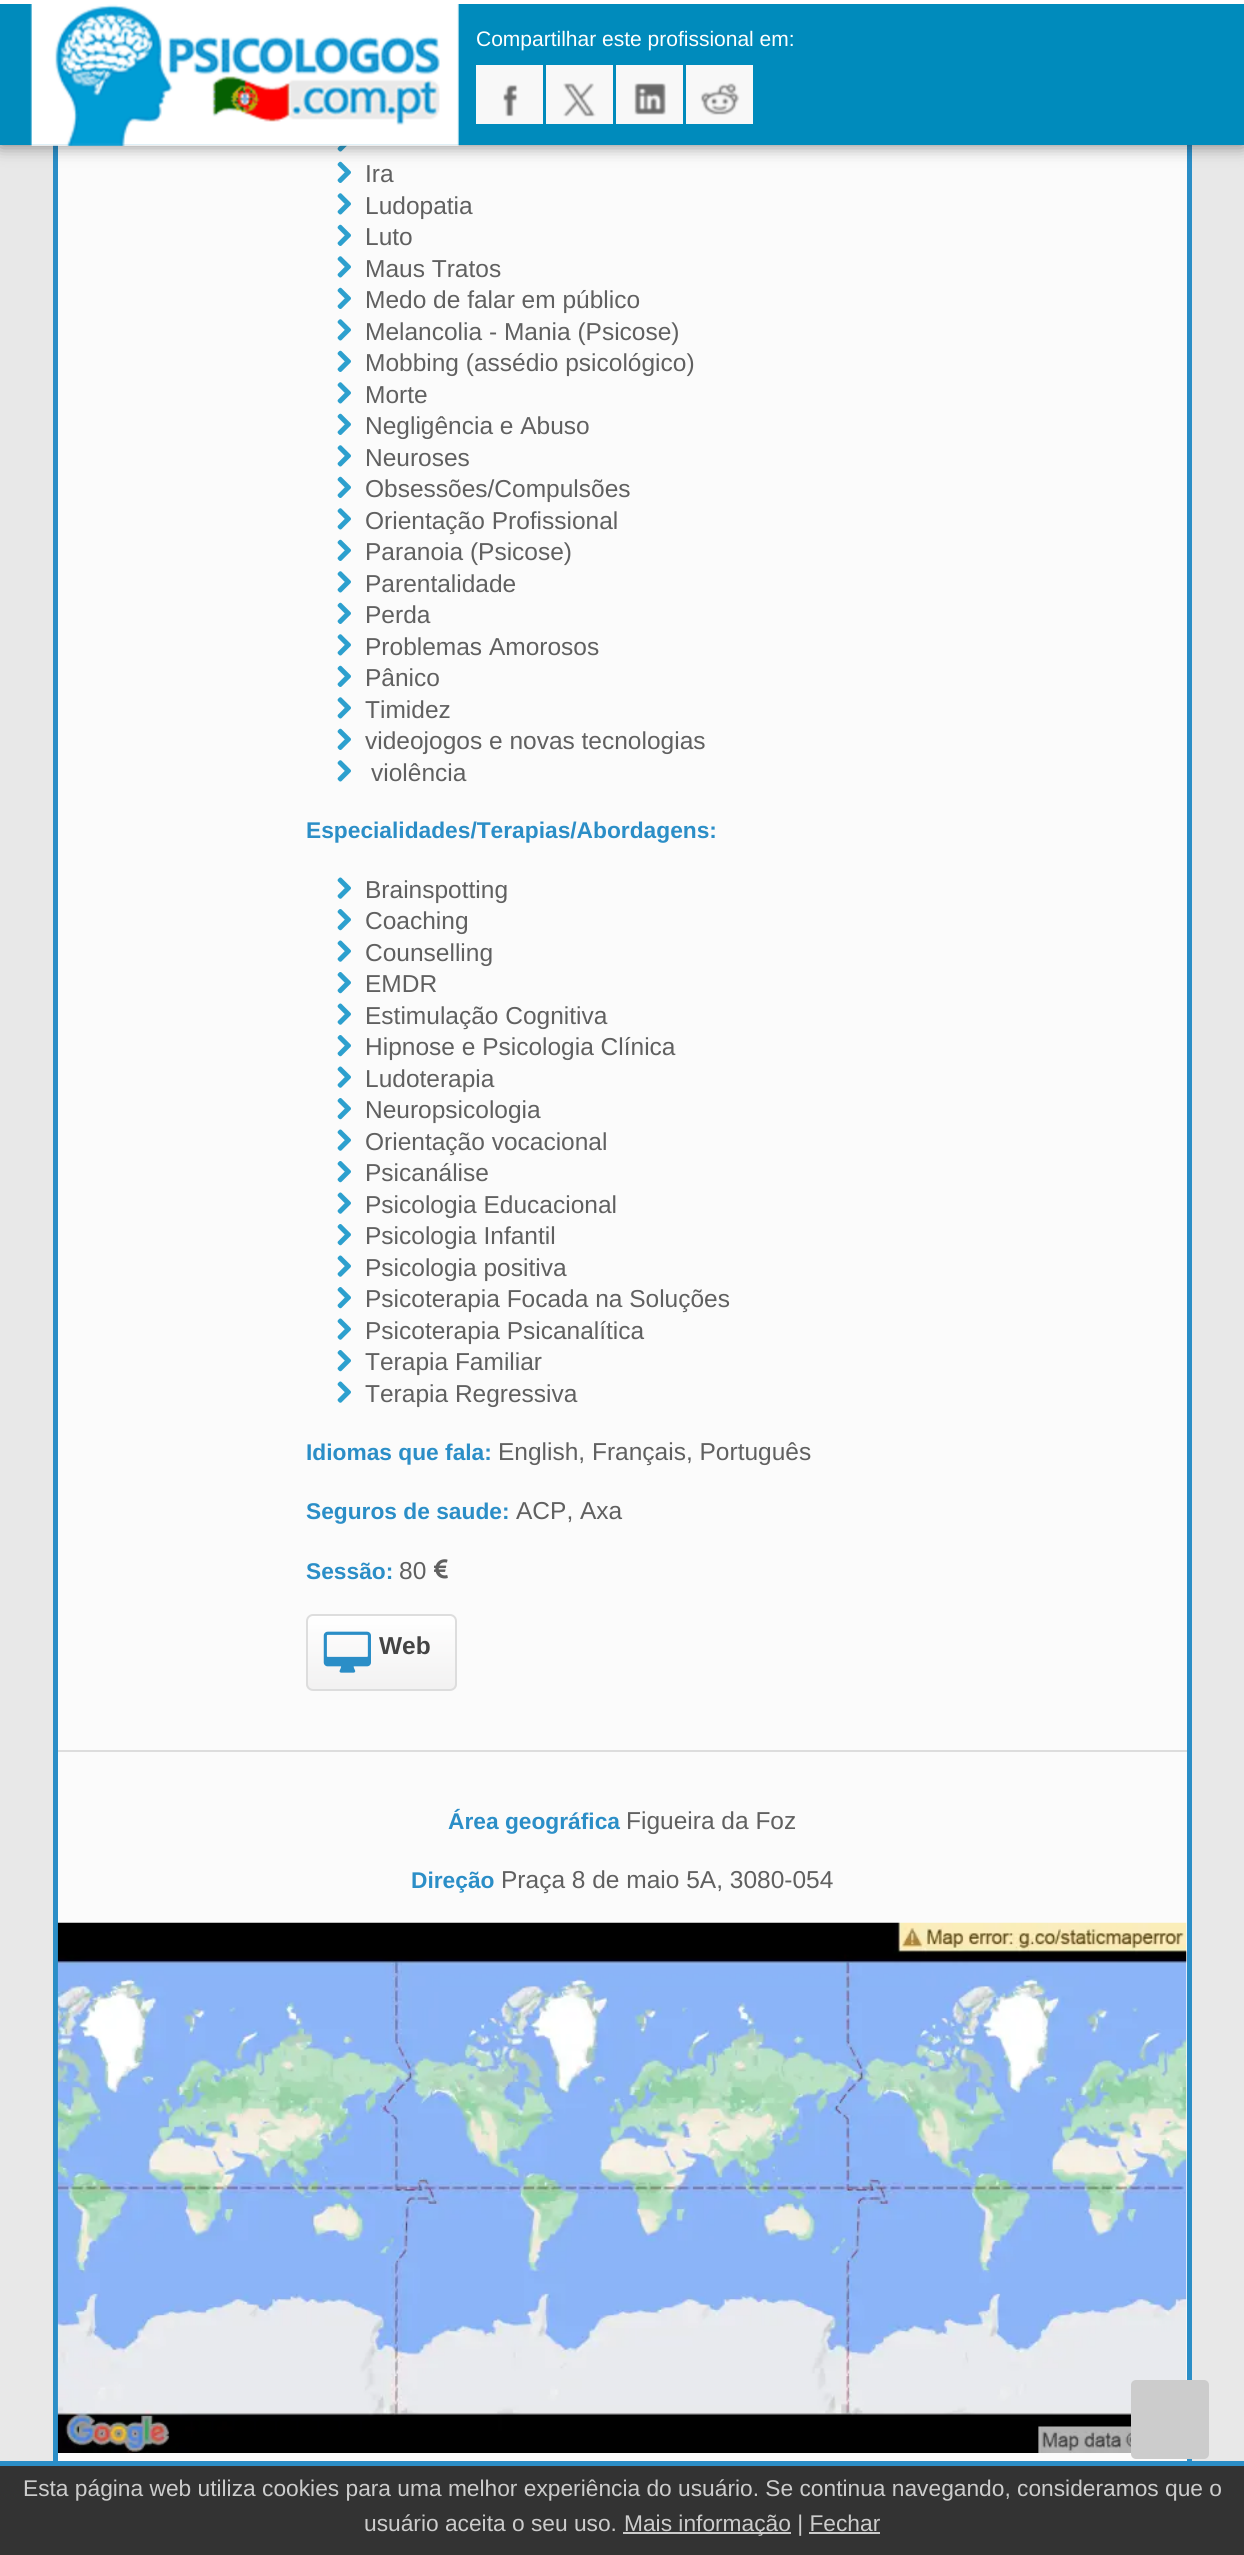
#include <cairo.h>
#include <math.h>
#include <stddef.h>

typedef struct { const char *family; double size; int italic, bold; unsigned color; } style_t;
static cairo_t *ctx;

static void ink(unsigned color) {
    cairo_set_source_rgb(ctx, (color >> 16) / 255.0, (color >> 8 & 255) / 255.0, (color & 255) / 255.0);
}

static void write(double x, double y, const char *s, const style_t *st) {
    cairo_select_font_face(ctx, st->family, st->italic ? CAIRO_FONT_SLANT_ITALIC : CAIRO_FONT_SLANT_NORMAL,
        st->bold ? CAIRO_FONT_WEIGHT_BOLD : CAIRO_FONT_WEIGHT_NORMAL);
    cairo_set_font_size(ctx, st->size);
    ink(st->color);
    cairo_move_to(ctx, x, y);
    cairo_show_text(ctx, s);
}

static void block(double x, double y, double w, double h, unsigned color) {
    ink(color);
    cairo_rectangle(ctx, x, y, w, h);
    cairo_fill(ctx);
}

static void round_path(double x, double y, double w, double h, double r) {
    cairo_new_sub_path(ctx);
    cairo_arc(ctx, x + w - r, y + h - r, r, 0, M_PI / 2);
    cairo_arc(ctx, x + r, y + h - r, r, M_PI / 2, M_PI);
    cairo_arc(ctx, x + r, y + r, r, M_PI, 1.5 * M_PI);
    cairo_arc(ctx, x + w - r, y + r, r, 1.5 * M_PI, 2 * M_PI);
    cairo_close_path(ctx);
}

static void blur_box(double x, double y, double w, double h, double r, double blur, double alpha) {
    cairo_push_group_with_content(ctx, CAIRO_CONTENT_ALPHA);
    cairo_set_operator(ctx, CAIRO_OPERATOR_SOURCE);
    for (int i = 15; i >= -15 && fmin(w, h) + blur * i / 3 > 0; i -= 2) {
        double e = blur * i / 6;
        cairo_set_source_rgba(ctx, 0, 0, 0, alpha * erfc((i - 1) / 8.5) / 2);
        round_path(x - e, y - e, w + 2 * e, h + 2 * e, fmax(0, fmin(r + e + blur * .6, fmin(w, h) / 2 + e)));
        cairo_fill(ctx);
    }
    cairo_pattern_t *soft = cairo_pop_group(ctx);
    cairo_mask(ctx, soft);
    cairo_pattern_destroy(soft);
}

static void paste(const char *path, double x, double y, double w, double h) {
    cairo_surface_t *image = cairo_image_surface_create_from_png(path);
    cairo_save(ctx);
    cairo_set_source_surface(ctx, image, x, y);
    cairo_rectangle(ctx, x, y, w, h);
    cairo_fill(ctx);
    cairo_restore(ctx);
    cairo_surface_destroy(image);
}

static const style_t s1 = {"Liberation Sans", 21, 0, 0, 0xffffff};
static const style_t s2 = {"Liberation Sans", 24.5, 0, 0, 0x606060};
static const style_t s3 = {"Liberation Sans", 22.75, 0, 1, 0x2b8ec7};
static const style_t s4 = {"Liberation Sans", 24.5, 0, 1, 0x444444};
static const style_t s5 = {"Liberation Sans", 22.75, 0, 0, 0xcccccc};

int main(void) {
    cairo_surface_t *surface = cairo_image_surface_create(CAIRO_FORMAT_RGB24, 1244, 2555);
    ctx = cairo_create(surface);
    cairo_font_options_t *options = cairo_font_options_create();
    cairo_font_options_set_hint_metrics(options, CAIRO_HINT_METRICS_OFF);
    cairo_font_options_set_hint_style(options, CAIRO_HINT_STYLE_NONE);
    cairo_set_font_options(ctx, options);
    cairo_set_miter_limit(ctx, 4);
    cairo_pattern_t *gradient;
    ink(0xe8e8e8);
    cairo_paint(ctx);
    block(58, 145, 1129, 2316, 0xfbfbfb);
    cairo_rectangle(ctx, 55.5, -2.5, 1134, 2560);
    ink(0x2b8ec7);
    cairo_set_line_width(ctx, 5);
    cairo_stroke(ctx);
    paste("pic6.png", 337, 145, 11, 7);
    paste("pic7.png", 337, 161, 14, 22);
    ink(0x000000);
    blur_box(0, 0, 1244, 145, 0, 9, 0.5);
    block(0, 4, 1244, 141, 0x008bbc);
    block(0, 0, 1244, 4, 0xffffff);
    paste("pic1.png", 30, 4, 429, 142);
    write(476, 46, "Compartilhar este profissional em:", &s1);
    block(476, 65, 67, 59, 0xf8f8f8);
    paste("pic2.png", 503, 84, 15, 33);
    block(546, 65, 67, 59, 0xf8f8f8);
    paste("pic3.png", 563, 83, 33, 34);
    block(616, 65, 67, 59, 0xf8f8f8);
    paste("pic4.png", 634, 83, 32, 32);
    block(686, 65, 67, 59, 0xf8f8f8);
    paste("pic5.png", 700, 83, 40, 32);
    write(365, 182, "Ira", &s2);
    paste("pic8.png", 337, 193, 14, 22);
    write(365, 214, "Ludopatia", &s2);
    paste("pic7.png", 337, 224, 14, 22);
    write(365, 245, "Luto", &s2);
    paste("pic8.png", 337, 256, 14, 22);
    write(365, 277, "Maus Tratos", &s2);
    paste("pic7.png", 337, 287, 14, 22);
    write(365, 308, "Medo de falar em público", &s2);
    paste("pic8.png", 337, 319, 14, 22);
    write(365, 340, "Melancolia - Mania (Psicose)", &s2);
    paste("pic7.png", 337, 350, 14, 22);
    write(365, 371, "Mobbing (assédio psicológico)", &s2);
    paste("pic8.png", 337, 382, 14, 22);
    write(365, 403, "Morte", &s2);
    paste("pic7.png", 337, 413, 14, 22);
    write(365, 434, "Negligência e Abuso", &s2);
    paste("pic8.png", 337, 445, 14, 22);
    write(365, 466, "Neuroses", &s2);
    paste("pic7.png", 337, 476, 14, 22);
    write(365, 497, "Obsessões/Compulsões", &s2);
    paste("pic8.png", 337, 508, 14, 22);
    write(365, 529, "Orientação Profissional", &s2);
    paste("pic7.png", 337, 539, 14, 22);
    write(365, 560, "Paranoia (Psicose)", &s2);
    paste("pic8.png", 337, 571, 14, 22);
    write(365, 592, "Parentalidade", &s2);
    paste("pic7.png", 337, 602, 14, 22);
    write(365, 623, "Perda", &s2);
    paste("pic8.png", 337, 634, 14, 22);
    write(365, 655, "Problemas Amorosos", &s2);
    paste("pic7.png", 337, 665, 14, 22);
    write(365, 686, "Pânico", &s2);
    paste("pic8.png", 337, 697, 14, 22);
    write(365, 718, "Timidez", &s2);
    paste("pic7.png", 337, 728, 14, 22);
    write(365, 749, "videojogos e novas tecnologias", &s2);
    paste("pic8.png", 337, 760, 14, 22);
    write(371, 781, "violência", &s2);
    write(306, 838, "Especialidades/Terapias/Abordagens:", &s3);
    paste("pic9.png", 337, 877, 14, 22);
    write(365, 898, "Brainspotting", &s2);
    paste("pic10.png", 337, 909, 14, 22);
    write(365, 929, "Coaching", &s2);
    paste("pic9.png", 337, 940, 14, 22);
    write(365, 961, "Counselling", &s2);
    paste("pic10.png", 337, 972, 14, 22);
    write(365, 992, "EMDR", &s2);
    paste("pic9.png", 337, 1003, 14, 22);
    write(365, 1024, "Estimulação Cognitiva", &s2);
    paste("pic10.png", 337, 1035, 14, 22);
    write(365, 1055, "Hipnose e Psicologia Clínica", &s2);
    paste("pic9.png", 337, 1066, 14, 22);
    write(365, 1087, "Ludoterapia", &s2);
    paste("pic10.png", 337, 1098, 14, 22);
    write(365, 1118, "Neuropsicologia", &s2);
    paste("pic9.png", 337, 1129, 14, 22);
    write(365, 1150, "Orientação vocacional", &s2);
    paste("pic10.png", 337, 1161, 14, 22);
    write(365, 1181, "Psicanálise", &s2);
    paste("pic9.png", 337, 1192, 14, 22);
    write(365, 1213, "Psicologia Educacional", &s2);
    paste("pic10.png", 337, 1224, 14, 22);
    write(365, 1244, "Psicologia Infantil", &s2);
    paste("pic9.png", 337, 1255, 14, 22);
    write(365, 1276, "Psicologia positiva", &s2);
    paste("pic10.png", 337, 1287, 14, 22);
    write(365, 1307, "Psicoterapia Focada na Soluções", &s2);
    paste("pic9.png", 337, 1318, 14, 22);
    write(365, 1339, "Psicoterapia Psicanalítica", &s2);
    paste("pic10.png", 337, 1350, 14, 22);
    write(365, 1370, "Terapia Familiar", &s2);
    paste("pic9.png", 337, 1381, 14, 22);
    write(365, 1402, "Terapia Regressiva", &s2);
    write(306, 1460, "Idiomas que fala:", &s3);
    write(498, 1460, "English, Français, Português", &s2);
    write(306, 1519, "Seguros de saude:", &s3);
    write(516, 1519, "ACP, Axa", &s2);
    write(306, 1579, "Sessão:", &s3);
    write(399, 1579, "80", &s2);
    paste("pic11.png", 434, 1559, 14, 20);
    cairo_save(ctx);
    round_path(306, 1614, 151, 77, 7);
    cairo_clip(ctx);
    gradient = cairo_pattern_create_linear(382, 1689, 382, 1615);
    cairo_pattern_add_color_stop_rgba(gradient, 0, 0.929, 0.925, 0.925, 1);
    cairo_pattern_add_color_stop_rgba(gradient, 1, 1, 1, 1, 1);
    cairo_set_source(ctx, gradient);
    cairo_pattern_destroy(gradient);
    cairo_rectangle(ctx, 306, 1615, 151, 74);
    cairo_fill(ctx);
    cairo_restore(ctx);
    cairo_set_source_rgba(ctx, 1, 1, 1, 0.3);
    cairo_new_path(ctx);
    cairo_move_to(ctx, 313, 1615);
    cairo_curve_to(ctx, 310, 1615, 308, 1617, 308, 1620);
    cairo_line_to(ctx, 308, 1684);
    cairo_curve_to(ctx, 308, 1687, 310, 1689, 313, 1689);
    cairo_line_to(ctx, 450, 1689);
    cairo_curve_to(ctx, 453, 1689, 455, 1687, 455, 1684);
    cairo_line_to(ctx, 455, 1620);
    cairo_curve_to(ctx, 455, 1617, 453, 1615, 450, 1615);
    cairo_close_path(ctx);
    cairo_fill(ctx);
    round_path(307, 1615, 149, 75, 6);
    ink(0xdddddd);
    cairo_set_line_width(ctx, 2);
    cairo_stroke(ctx);
    paste("pic12.png", 323, 1631, 48, 42);
    write(379, 1654, "Web", &s4);
    block(58, 1750, 1129, 2, 0xdddddd);
    write(448, 1829, "Área geográfica", &s3);
    write(626, 1829, "Figueira da Foz", &s2);
    write(411, 1888, "Direção", &s3);
    write(501, 1888, "Praça 8 de maio 5A, 3080-054", &s2);
    paste("pic13.png", 57, 1922, 1130, 531);
    ink(0xcccccc);
    round_path(1131, 2380, 78, 79, 5);
    cairo_fill(ctx);
    block(0, 2466, 1244, 89, 0x333333);
    block(0, 2461, 1244, 5, 0x2b8ec7);
    write(23, 2496, "Esta página web utiliza cookies para uma melhor experiência do usuário. Se continua navegando, consideramos que o", &s5);
    write(364, 2531, "usuário aceita o seu uso.", &s5);
    block(623, 2532, 168, 2, 0xcccccc);
    write(624, 2531, "Mais informação | Fechar", &s5);
    block(809, 2532, 71, 2, 0xcccccc);
    cairo_surface_write_to_png(surface, "screenshot.png");
    cairo_font_options_destroy(options);
    cairo_destroy(ctx);
    cairo_surface_destroy(surface);
    return 0;
}
